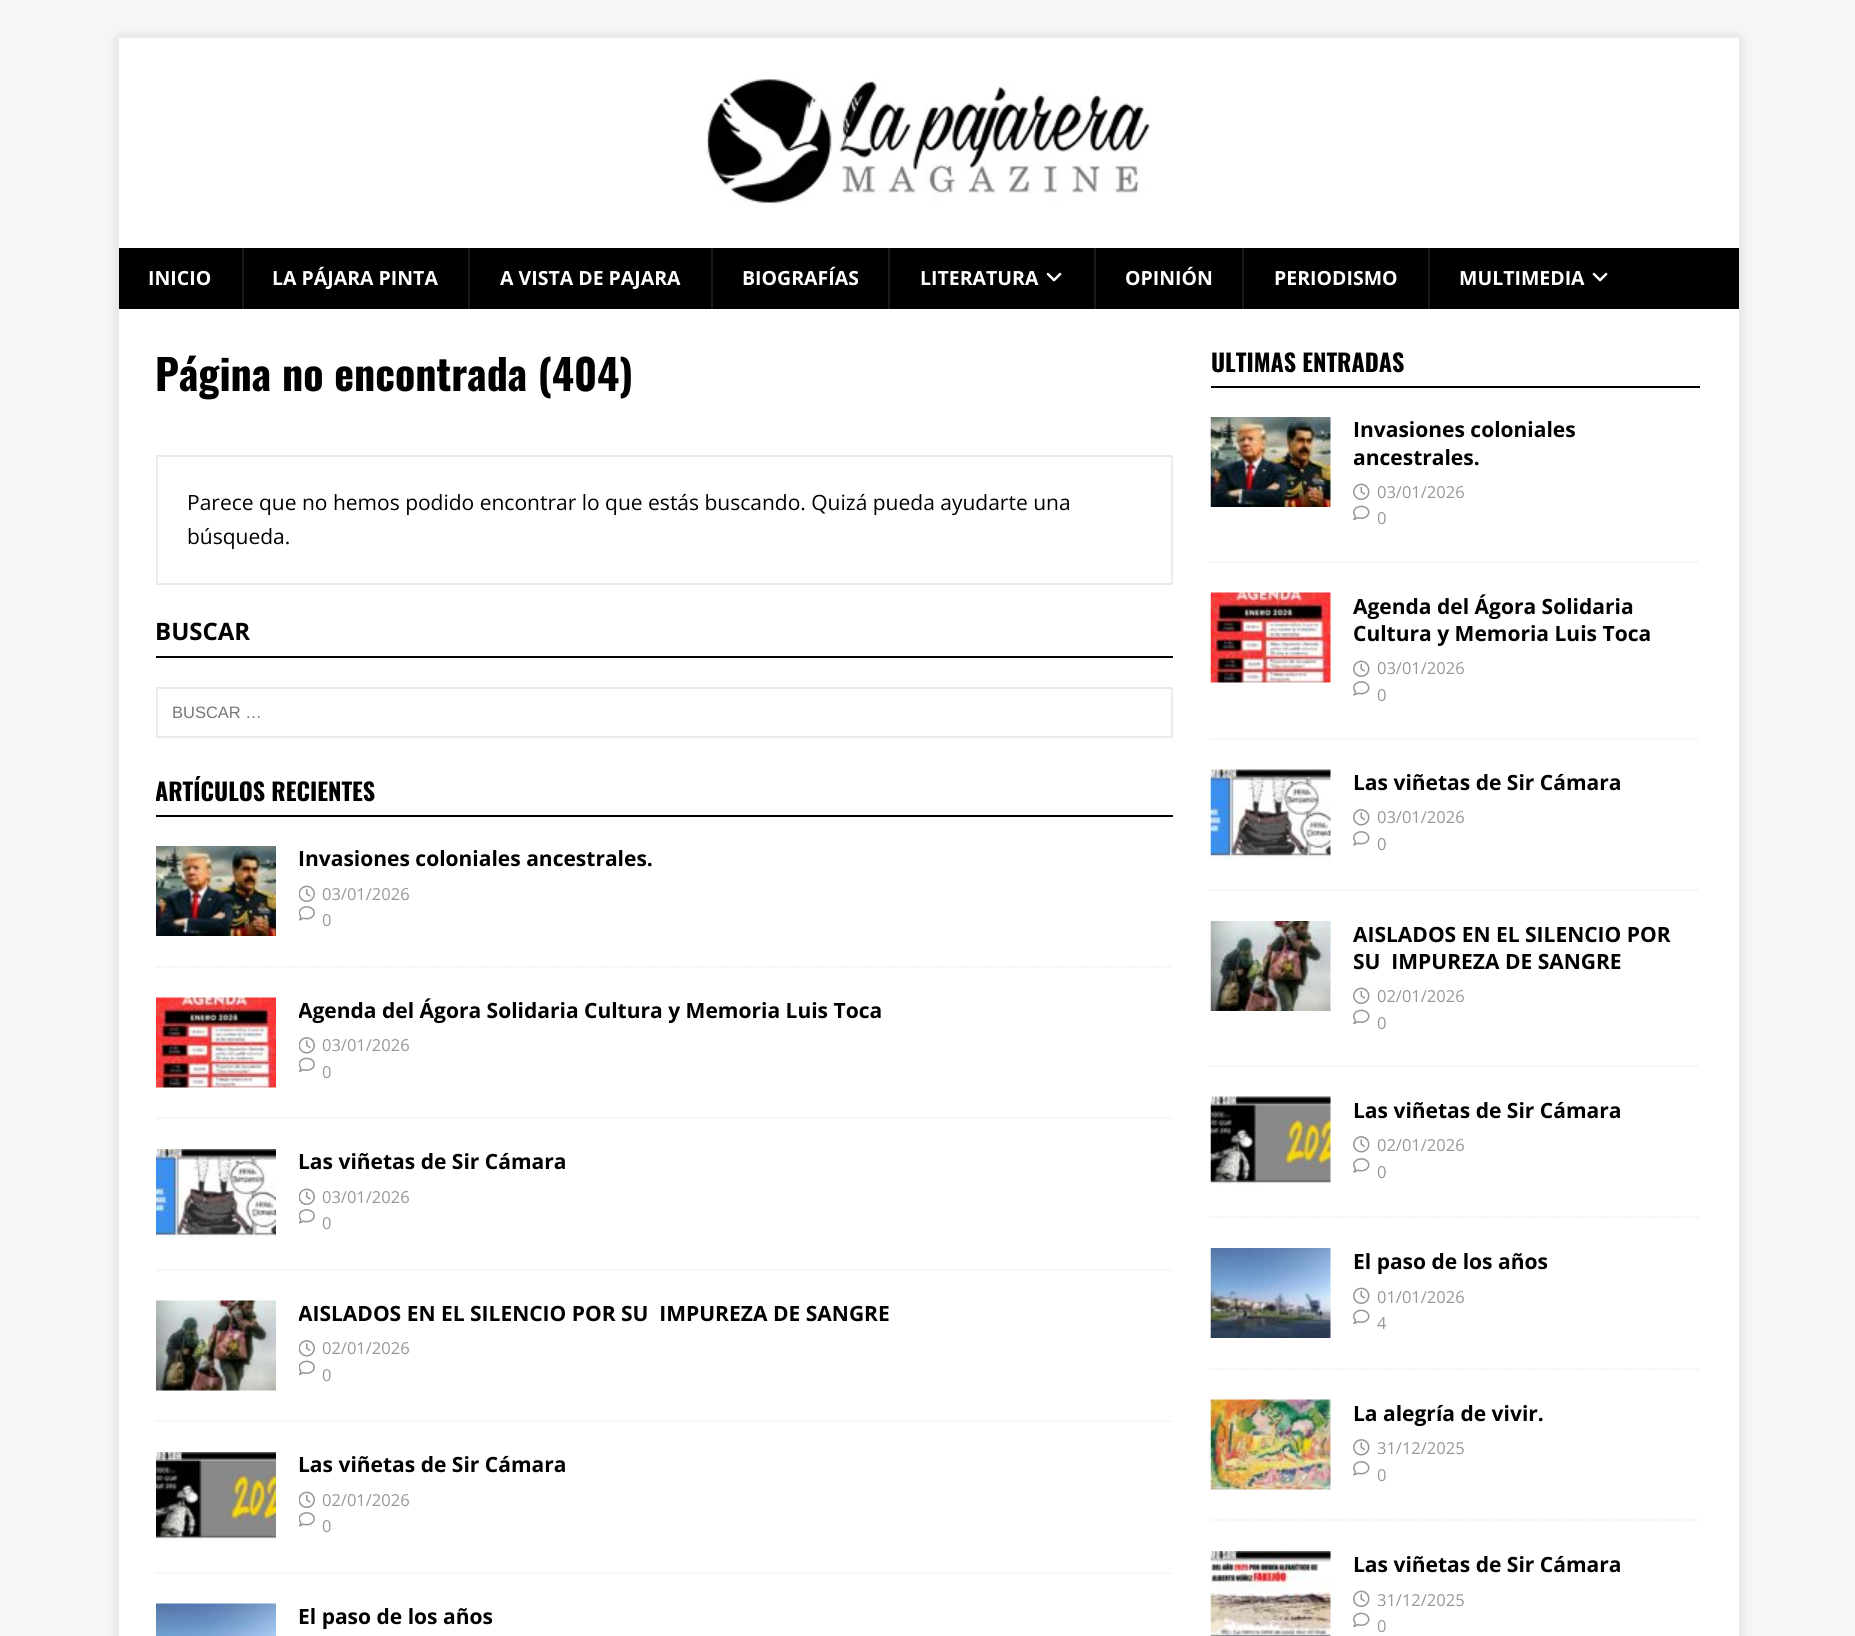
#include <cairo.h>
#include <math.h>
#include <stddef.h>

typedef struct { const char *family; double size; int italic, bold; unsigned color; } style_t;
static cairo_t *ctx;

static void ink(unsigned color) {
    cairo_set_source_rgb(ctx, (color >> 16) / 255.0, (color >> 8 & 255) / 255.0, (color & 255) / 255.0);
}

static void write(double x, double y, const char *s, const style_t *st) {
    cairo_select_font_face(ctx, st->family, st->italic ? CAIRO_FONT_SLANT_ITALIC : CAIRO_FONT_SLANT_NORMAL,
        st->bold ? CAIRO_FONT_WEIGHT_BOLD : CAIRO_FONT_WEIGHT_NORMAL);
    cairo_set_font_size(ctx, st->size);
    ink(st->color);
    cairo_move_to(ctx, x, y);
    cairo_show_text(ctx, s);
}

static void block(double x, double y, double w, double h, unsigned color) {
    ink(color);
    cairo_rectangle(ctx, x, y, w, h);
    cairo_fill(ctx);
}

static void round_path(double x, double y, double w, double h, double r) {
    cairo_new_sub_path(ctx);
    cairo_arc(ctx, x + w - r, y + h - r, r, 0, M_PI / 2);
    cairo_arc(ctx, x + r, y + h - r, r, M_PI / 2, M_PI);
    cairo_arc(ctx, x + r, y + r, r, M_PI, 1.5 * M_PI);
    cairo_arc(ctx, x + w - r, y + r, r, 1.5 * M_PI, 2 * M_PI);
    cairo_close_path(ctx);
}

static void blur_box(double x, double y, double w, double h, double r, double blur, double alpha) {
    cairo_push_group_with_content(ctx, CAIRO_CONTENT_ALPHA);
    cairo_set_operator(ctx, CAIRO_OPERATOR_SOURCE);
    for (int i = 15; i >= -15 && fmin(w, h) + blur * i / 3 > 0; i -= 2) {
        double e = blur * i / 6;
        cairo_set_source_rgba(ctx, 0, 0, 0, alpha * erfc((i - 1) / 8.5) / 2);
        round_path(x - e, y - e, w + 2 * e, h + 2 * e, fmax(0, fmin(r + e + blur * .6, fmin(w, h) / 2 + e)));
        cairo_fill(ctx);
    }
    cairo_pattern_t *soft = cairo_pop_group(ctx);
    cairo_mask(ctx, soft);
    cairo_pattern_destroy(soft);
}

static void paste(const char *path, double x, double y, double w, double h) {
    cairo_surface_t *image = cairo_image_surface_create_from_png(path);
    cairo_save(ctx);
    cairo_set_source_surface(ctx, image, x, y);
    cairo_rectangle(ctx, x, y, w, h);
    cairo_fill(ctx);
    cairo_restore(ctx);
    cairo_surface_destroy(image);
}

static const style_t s1 = {"Open Sans", 19.5, 0, 1, 0xffffff};
static const style_t s2 = {"Oswald", 42, 0, 1, 0x000000};
static const style_t s3 = {"Open Sans", 21, 0, 0, 0x000000};
static const style_t s4 = {"Open Sans", 24, 0, 1, 0x000000};
static const style_t s5 = {"Liberation Sans", 16.5, 0, 0, 0x757575};
static const style_t s6 = {"Oswald", 24, 0, 1, 0x000000};
static const style_t s7 = {"Open Sans", 21, 0, 1, 0x000000};
static const style_t s8 = {"Open Sans", 16.5, 0, 0, 0x979797};

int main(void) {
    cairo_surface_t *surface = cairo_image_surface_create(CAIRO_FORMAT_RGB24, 1855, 1636);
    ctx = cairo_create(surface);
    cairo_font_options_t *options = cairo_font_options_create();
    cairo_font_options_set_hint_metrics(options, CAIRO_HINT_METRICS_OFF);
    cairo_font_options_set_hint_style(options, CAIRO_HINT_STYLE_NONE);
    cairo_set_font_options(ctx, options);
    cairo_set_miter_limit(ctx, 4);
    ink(0xf7f7f7);
    cairo_paint(ctx);
    ink(0x323232);
    blur_box(119, 38, 1620, 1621, 0, 7.5, 0.17);
    block(119, 38, 1620, 210, 0xffffff);
    paste("pic1.png", 707, 79, 444, 126);
    block(119, 248, 1620, 61, 0x000000);
    write(148, 285, "INICIO", &s1);
    block(242, 248, 2, 61, 0x1a1a1a);
    write(272, 285, "LA PÁJARA PINTA", &s1);
    block(468, 248, 2, 61, 0x1a1a1a);
    write(500, 285, "A VISTA DE PAJARA", &s1);
    block(711, 248, 2, 61, 0x1a1a1a);
    write(742, 285, "BIOGRAFÍAS", &s1);
    block(888, 248, 2, 61, 0x1a1a1a);
    write(920, 285, "LITERATURA", &s1);
    paste("pic2.png", 1046, 272, 16, 10);
    block(1094, 248, 2, 61, 0x1a1a1a);
    write(1125, 285, "OPINIÓN", &s1);
    block(1242, 248, 2, 61, 0x1a1a1a);
    write(1274, 285, "PERIODISMO", &s1);
    block(1428, 248, 2, 61, 0x1a1a1a);
    write(1459, 285, "MULTIMEDIA", &s1);
    paste("pic2.png", 1592, 272, 16, 10);
    block(119, 309, 1620, 1327, 0xffffff);
    write(155, 391, "Página no encontrada (404)", &s2);
    cairo_rectangle(ctx, 157, 456, 1015, 128);
    ink(0xebebeb);
    cairo_stroke(ctx);
    write(187, 510, "Parece que no hemos podido encontrar lo que estás buscando. Quizá pueda ayudarte una", &s3);
    write(187, 544, "búsqueda.", &s3);
    block(156, 656, 1017, 2, 0x000000);
    write(155, 640, "BUSCAR", &s4);
    cairo_rectangle(ctx, 157, 688, 1015, 49);
    ink(0xebebeb);
    cairo_stroke(ctx);
    write(172, 718, "BUSCAR …", &s5);
    block(156, 815, 1017, 2, 0x000000);
    cairo_save(ctx);
    cairo_rectangle(ctx, 156, 776, 1017, 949);
    cairo_clip(ctx);
    write(155, 801, "ARTÍCULOS RECIENTES", &s6);
    cairo_restore(ctx);
    cairo_new_path(ctx);
    cairo_move_to(ctx, 156, 967);
    cairo_line_to(ctx, 1173, 967);
    ink(0xebebeb);
    cairo_set_line_width(ctx, 1.5);
    cairo_set_dash(ctx, (double[]){1.5, 1.5}, 2, 0);
    cairo_stroke(ctx);
    paste("pic3.png", 156, 846, 120, 90);
    write(298, 866, "Invasiones coloniales ancestrales.", &s7);
    paste("pic4.png", 299, 885, 16, 17);
    write(322, 900, "03/01/2026", &s8);
    paste("pic5.png", 299, 906, 16, 15);
    write(322, 926, "0", &s8);
    cairo_new_path(ctx);
    cairo_move_to(ctx, 156, 1118);
    cairo_line_to(ctx, 1173, 1118);
    ink(0xebebeb);
    cairo_stroke(ctx);
    paste("pic6.png", 156, 997, 120, 91);
    cairo_save(ctx);
    cairo_rectangle(ctx, 299, 998, 874, 87);
    cairo_clip(ctx);
    write(298, 1018, "Agenda del Ágora Solidaria Cultura y Memoria Luis Toca", &s7);
    cairo_restore(ctx);
    paste("pic7.png", 299, 1037, 16, 17);
    write(322, 1051, "03/01/2026", &s8);
    paste("pic8.png", 299, 1057, 16, 15);
    write(322, 1078, "0", &s8);
    cairo_new_path(ctx);
    cairo_move_to(ctx, 156, 1270);
    cairo_line_to(ctx, 1173, 1270);
    ink(0xebebeb);
    cairo_stroke(ctx);
    paste("pic9.png", 156, 1149, 120, 90);
    write(298, 1169, "Las viñetas de Sir Cámara", &s7);
    paste("pic4.png", 299, 1188, 16, 17);
    write(322, 1203, "03/01/2026", &s8);
    paste("pic5.png", 299, 1209, 16, 15);
    write(322, 1229, "0", &s8);
    cairo_new_path(ctx);
    cairo_move_to(ctx, 156, 1421);
    cairo_line_to(ctx, 1173, 1421);
    ink(0xebebeb);
    cairo_stroke(ctx);
    paste("pic10.png", 156, 1300, 120, 91);
    cairo_save(ctx);
    cairo_rectangle(ctx, 299, 1301, 874, 87);
    cairo_clip(ctx);
    write(298, 1321, "AISLADOS EN EL SILENCIO POR SU  IMPUREZA", &s7);
    cairo_restore(ctx);
    write(773, 1321, "DE SANGRE", &s7);
    paste("pic7.png", 299, 1340, 16, 17);
    write(322, 1354, "02/01/2026", &s8);
    paste("pic8.png", 299, 1360, 16, 15);
    write(322, 1381, "0", &s8);
    cairo_new_path(ctx);
    cairo_move_to(ctx, 156, 1573);
    cairo_line_to(ctx, 1173, 1573);
    ink(0xebebeb);
    cairo_stroke(ctx);
    paste("pic11.png", 156, 1452, 120, 88);
    write(298, 1472, "Las viñetas de Sir Cámara", &s7);
    paste("pic4.png", 299, 1491, 16, 17);
    write(322, 1506, "02/01/2026", &s8);
    paste("pic5.png", 299, 1512, 16, 15);
    write(322, 1532, "0", &s8);
    paste("pic12.png", 156, 1603, 120, 33);
    write(298, 1624, "El paso de los años", &s7);
    block(1211, 386, 489, 2, 0x000000);
    write(1211, 372, "ULTIMAS ENTRADAS", &s6);
    cairo_new_path(ctx);
    cairo_move_to(ctx, 1210.5, 562);
    cairo_line_to(ctx, 1699.5, 562);
    ink(0xebebeb);
    cairo_stroke(ctx);
    paste("pic13.png", 1210, 417, 121, 90);
    write(1353, 437, "Invasiones coloniales", &s7);
    write(1353, 465, "ancestrales.", &s7);
    paste("pic14.png", 1353, 483, 17, 17);
    write(1377, 498, "03/01/2026", &s8);
    paste("pic15.png", 1353, 505, 17, 15);
    write(1377, 524, "0", &s8);
    cairo_new_path(ctx);
    cairo_move_to(ctx, 1210.5, 739);
    cairo_line_to(ctx, 1699.5, 739);
    ink(0xebebeb);
    cairo_stroke(ctx);
    paste("pic16.png", 1210, 592, 121, 91);
    write(1353, 614, "Agenda del Ágora Solidaria", &s7);
    write(1353, 641, "Cultura y Memoria Luis Toca", &s7);
    paste("pic14.png", 1353, 660, 17, 17);
    write(1377, 674, "03/01/2026", &s8);
    paste("pic17.png", 1353, 681, 17, 15);
    write(1377, 701, "0", &s8);
    cairo_new_path(ctx);
    cairo_move_to(ctx, 1210.5, 890);
    cairo_line_to(ctx, 1699.5, 890);
    ink(0xebebeb);
    cairo_stroke(ctx);
    paste("pic18.png", 1210, 769, 121, 91);
    write(1353, 790, "Las viñetas de Sir Cámara", &s7);
    paste("pic19.png", 1353, 809, 17, 17);
    write(1377, 823, "03/01/2026", &s8);
    paste("pic17.png", 1353, 831, 17, 15);
    write(1377, 850, "0", &s8);
    cairo_new_path(ctx);
    cairo_move_to(ctx, 1210.5, 1066);
    cairo_line_to(ctx, 1699.5, 1066);
    ink(0xebebeb);
    cairo_stroke(ctx);
    paste("pic20.png", 1210, 921, 121, 90);
    write(1353, 942, "AISLADOS EN EL SILENCIO POR", &s7);
    write(1353, 969, "SU  IMPUREZA DE SANGRE", &s7);
    paste("pic14.png", 1353, 987, 17, 17);
    write(1377, 1002, "02/01/2026", &s8);
    paste("pic15.png", 1353, 1009, 17, 15);
    write(1377, 1029, "0", &s8);
    cairo_new_path(ctx);
    cairo_move_to(ctx, 1210.5, 1217);
    cairo_line_to(ctx, 1699.5, 1217);
    ink(0xebebeb);
    cairo_stroke(ctx);
    paste("pic21.png", 1210, 1096, 121, 89);
    write(1353, 1118, "Las viñetas de Sir Cámara", &s7);
    paste("pic19.png", 1353, 1136, 17, 17);
    write(1377, 1151, "02/01/2026", &s8);
    paste("pic17.png", 1353, 1158, 17, 15);
    write(1377, 1178, "0", &s8);
    cairo_new_path(ctx);
    cairo_move_to(ctx, 1210.5, 1369);
    cairo_line_to(ctx, 1699.5, 1369);
    ink(0xebebeb);
    cairo_stroke(ctx);
    paste("pic22.png", 1210, 1248, 121, 90);
    write(1353, 1269, "El paso de los años", &s7);
    paste("pic14.png", 1353, 1287, 17, 17);
    write(1377, 1303, "01/01/2026", &s8);
    paste("pic15.png", 1353, 1309, 17, 15);
    write(1377, 1329, "4", &s8);
    cairo_new_path(ctx);
    cairo_move_to(ctx, 1210.5, 1520);
    cairo_line_to(ctx, 1699.5, 1520);
    ink(0xebebeb);
    cairo_stroke(ctx);
    paste("pic23.png", 1210, 1399, 121, 91);
    write(1353, 1421, "La alegría de vivir.", &s7);
    paste("pic19.png", 1353, 1439, 17, 17);
    write(1377, 1454, "31/12/2025", &s8);
    paste("pic17.png", 1353, 1461, 17, 15);
    write(1377, 1481, "0", &s8);
    paste("pic24.png", 1210, 1551, 121, 85);
    write(1353, 1572, "Las viñetas de Sir Cámara", &s7);
    paste("pic14.png", 1353, 1590, 17, 17);
    write(1377, 1606, "31/12/2025", &s8);
    paste("pic15.png", 1353, 1612, 17, 15);
    write(1377, 1632, "0", &s8);
    cairo_surface_write_to_png(surface, "screenshot.png");
    cairo_font_options_destroy(options);
    cairo_destroy(ctx);
    cairo_surface_destroy(surface);
    return 0;
}
